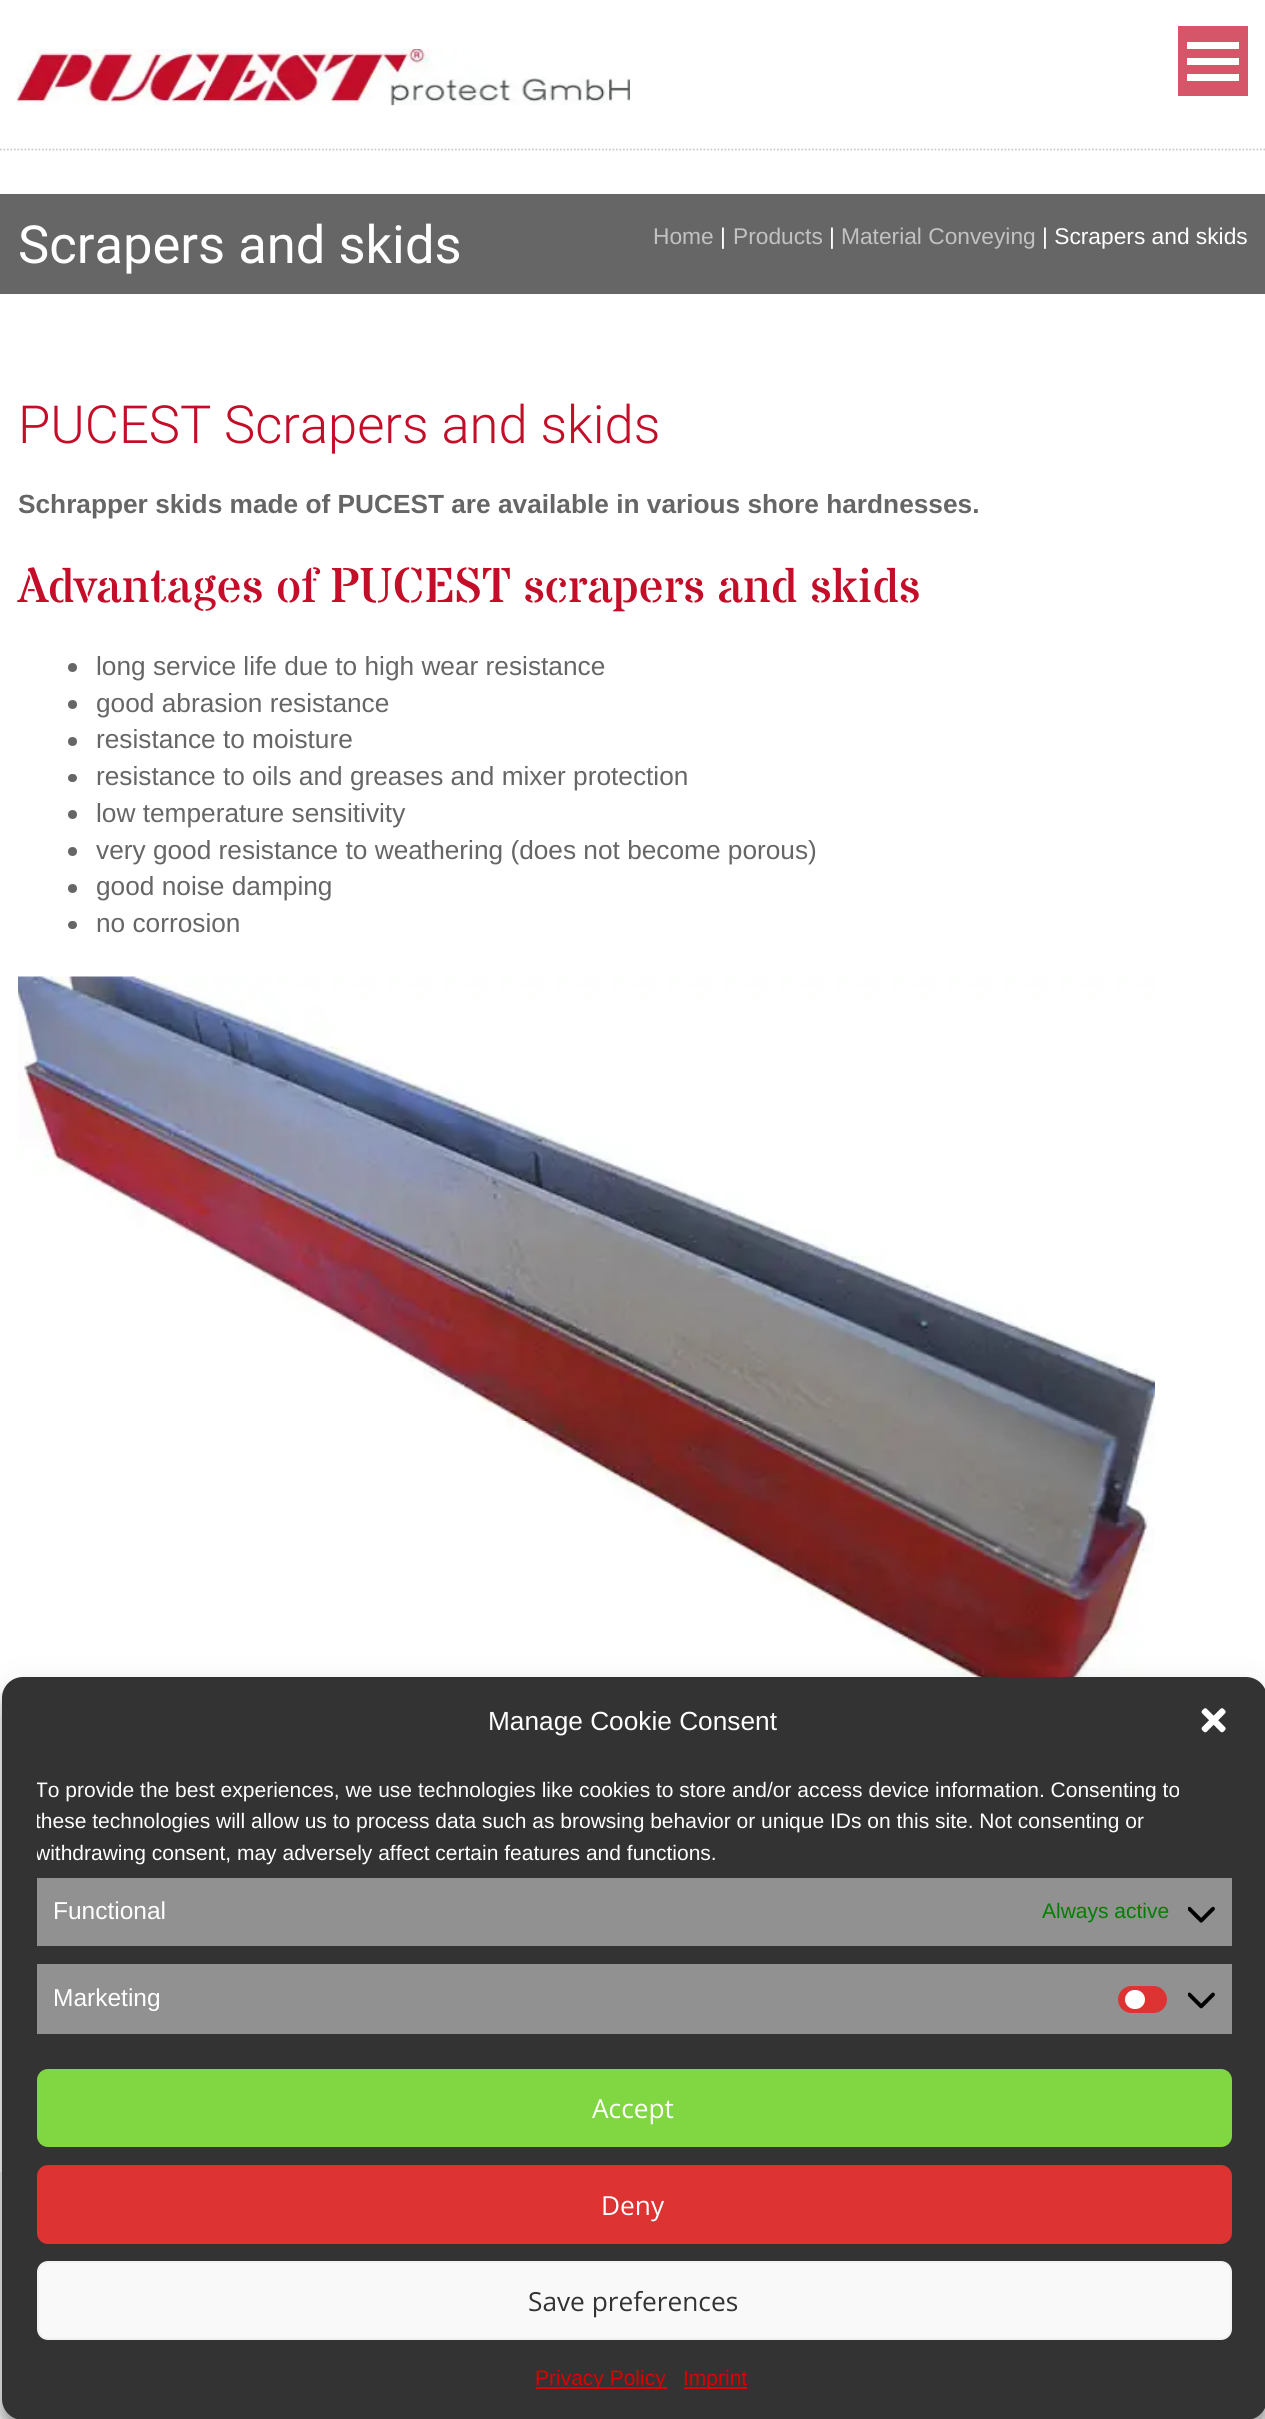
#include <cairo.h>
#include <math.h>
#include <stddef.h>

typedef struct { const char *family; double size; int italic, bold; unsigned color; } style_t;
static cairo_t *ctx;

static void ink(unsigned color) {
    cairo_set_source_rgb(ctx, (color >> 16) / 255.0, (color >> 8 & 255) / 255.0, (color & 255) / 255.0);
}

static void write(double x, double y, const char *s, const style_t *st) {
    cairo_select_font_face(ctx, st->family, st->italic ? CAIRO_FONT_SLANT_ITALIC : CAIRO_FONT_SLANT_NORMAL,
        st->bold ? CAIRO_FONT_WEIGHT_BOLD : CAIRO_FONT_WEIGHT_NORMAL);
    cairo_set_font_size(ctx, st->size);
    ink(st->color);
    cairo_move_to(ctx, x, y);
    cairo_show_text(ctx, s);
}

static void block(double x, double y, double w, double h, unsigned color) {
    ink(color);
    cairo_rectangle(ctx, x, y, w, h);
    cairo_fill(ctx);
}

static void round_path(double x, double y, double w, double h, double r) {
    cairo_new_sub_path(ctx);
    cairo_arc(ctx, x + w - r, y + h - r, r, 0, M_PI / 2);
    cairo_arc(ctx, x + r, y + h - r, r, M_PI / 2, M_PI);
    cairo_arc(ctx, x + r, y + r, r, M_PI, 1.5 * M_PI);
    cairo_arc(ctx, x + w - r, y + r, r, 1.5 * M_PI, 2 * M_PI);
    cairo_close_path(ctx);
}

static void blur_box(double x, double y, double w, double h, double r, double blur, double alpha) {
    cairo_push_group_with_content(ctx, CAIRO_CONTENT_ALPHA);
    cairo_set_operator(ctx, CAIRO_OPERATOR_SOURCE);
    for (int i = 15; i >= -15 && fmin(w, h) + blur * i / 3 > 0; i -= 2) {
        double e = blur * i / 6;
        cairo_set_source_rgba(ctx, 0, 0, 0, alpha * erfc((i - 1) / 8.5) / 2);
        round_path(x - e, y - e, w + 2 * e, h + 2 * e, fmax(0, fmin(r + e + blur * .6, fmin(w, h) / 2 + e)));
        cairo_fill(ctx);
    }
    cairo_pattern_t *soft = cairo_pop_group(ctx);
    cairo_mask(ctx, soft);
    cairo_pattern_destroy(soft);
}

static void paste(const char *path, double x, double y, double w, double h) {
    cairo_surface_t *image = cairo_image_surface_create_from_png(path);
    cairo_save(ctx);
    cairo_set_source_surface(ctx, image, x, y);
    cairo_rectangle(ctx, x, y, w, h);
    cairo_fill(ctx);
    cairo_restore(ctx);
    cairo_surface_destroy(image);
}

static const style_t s1 = {"Roboto", 52.5, 0, 0, 0xffffff};
static const style_t s2 = {"Liberation Sans", 22.75, 0, 0, 0xc2c2c2};
static const style_t s3 = {"Liberation Sans", 22.75, 0, 0, 0xffffff};
static const style_t s4 = {"Roboto Light", 52.5, 0, 0, 0xc40e29};
static const style_t s5 = {"Liberation Sans", 26.25, 0, 1, 0x666666};
static const style_t s6 = {"Stardos Stencil", 49, 0, 0, 0xc40e29};
static const style_t s7 = {"Liberation Sans", 26.25, 0, 0, 0x666666};
static const style_t s8 = {"Liberation Sans", 26.25, 0, 0, 0xffffff};
static const style_t s9 = {"Liberation Sans", 21, 0, 0, 0xffffff};
static const style_t s10 = {"Liberation Sans", 24.5, 0, 0, 0xffffff};
static const style_t s11 = {"Liberation Sans", 21, 0, 0, 0x008000};
static const style_t s12 = {"Open Sans", 26.25, 0, 0, 0xffffff};
static const style_t s13 = {"Open Sans", 26.25, 0, 0, 0x333333};
static const style_t s14 = {"Liberation Sans", 21, 0, 0, 0xdd0000};

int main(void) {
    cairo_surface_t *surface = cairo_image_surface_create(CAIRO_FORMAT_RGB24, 1265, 2419);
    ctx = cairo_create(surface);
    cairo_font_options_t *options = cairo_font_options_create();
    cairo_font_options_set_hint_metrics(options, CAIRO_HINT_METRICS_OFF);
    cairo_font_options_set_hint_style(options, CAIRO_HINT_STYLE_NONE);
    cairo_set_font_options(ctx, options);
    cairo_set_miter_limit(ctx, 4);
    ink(0xffffff);
    cairo_paint(ctx);
    cairo_new_path(ctx);
    cairo_move_to(ctx, 0, 149.5);
    cairo_line_to(ctx, 1265, 149.5);
    ink(0xcdcdcd);
    cairo_set_line_width(ctx, 1.8);
    cairo_set_dash(ctx, (double[]){1.75, 1.75}, 2, 0);
    cairo_stroke(ctx);
    paste("pic1.png", 17, 49, 613, 57);
    block(1178, 26, 70, 70, 0xd65669);
    block(1187, 42, 52, 7, 0xffffff);
    block(1187, 58, 52, 7, 0xffffff);
    block(1187, 74, 52, 7, 0xffffff);
    block(0, 194, 1265, 100, 0x666666);
    write(18, 263, "Scrapers and skids", &s1);
    write(653, 244, "Home", &s2);
    write(720, 244, "|", &s3);
    write(733, 244, "Products", &s2);
    write(829, 244, "|", &s3);
    write(841, 244, "Material Conveying", &s2);
    write(1042, 244, "| Scrapers and skids", &s3);
    write(18, 443, "PUCEST Scrapers and skids", &s4);
    write(18, 513, "Schrapper skids made of PUCEST are available in various shore hardnesses.", &s5);
    write(18, 602, "Advantages of PUCEST scrapers and skids", &s6);
    ink(0x666666);
    cairo_new_path(ctx);
    cairo_arc(ctx, 72.5, 667.5, 4.5, 0, 2 * M_PI);
    cairo_fill(ctx);
    write(96, 675, "long service life due to high wear resistance", &s7);
    cairo_new_path(ctx);
    cairo_arc(ctx, 72.5, 704.5, 4.5, 0, 2 * M_PI);
    cairo_fill(ctx);
    write(96, 712, "good abrasion resistance", &s7);
    cairo_new_path(ctx);
    cairo_arc(ctx, 72.5, 741.5, 4.5, 0, 2 * M_PI);
    cairo_fill(ctx);
    write(96, 748, "resistance to moisture", &s7);
    round_path(68, 774, 9, 8, 4);
    cairo_fill(ctx);
    write(96, 785, "resistance to oils and greases and mixer protection", &s7);
    cairo_new_path(ctx);
    cairo_arc(ctx, 72.5, 814.5, 4.5, 0, 2 * M_PI);
    cairo_fill(ctx);
    write(96, 822, "low temperature sensitivity", &s7);
    cairo_new_path(ctx);
    cairo_arc(ctx, 72.5, 851.5, 4.5, 0, 2 * M_PI);
    cairo_fill(ctx);
    write(96, 859, "very good resistance to weathering (does not become porous)", &s7);
    cairo_new_path(ctx);
    cairo_arc(ctx, 72.5, 888.5, 4.5, 0, 2 * M_PI);
    cairo_fill(ctx);
    write(96, 895, "good noise damping", &s7);
    round_path(68, 921, 9, 8, 4);
    cairo_fill(ctx);
    write(96, 932, "no corrosion", &s7);
    paste("pic2.png", 18, 976, 1137, 702);
    block(0, 2172, 1265, 247, 0xf1f1f1);
    ink(0x000000);
    blur_box(2, 1687, 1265, 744, 21, 5, 0.23);
    blur_box(2, 1694, 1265, 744, 21, 17.5, 0.19);
    ink(0x333333);
    round_path(2, 1677, 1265, 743, 21);
    cairo_fill(ctx);
    write(488, 1730, "Manage Cookie Consent", &s8);
    paste("pic3.png", 1201, 1708, 25, 25);
    cairo_save(ctx);
    cairo_rectangle(ctx, 37, 1775, 1195, 259);
    cairo_clip(ctx);
    write(35, 1797, "To provide the best experiences, we use technologies like cookies to store and/or access device information. Consenting to", &s9);
    write(35, 1828, "these technologies will allow us to process data such as browsing behavior or unique IDs on this site. Not consenting or", &s9);
    write(35, 1860, "withdrawing consent, may adversely affect certain features and functions.", &s9);
    cairo_restore(ctx);
    block(37, 1878, 1195, 68, 0x919191);
    write(53, 1919, "Functional", &s10);
    write(1042, 1918, "Always active", &s11);
    paste("pic4.png", 1188, 1906, 27, 17);
    block(37, 1964, 1195, 70, 0x919191);
    write(53, 2006, "Marketing", &s10);
    ink(0xdd3333);
    round_path(1118, 1986, 49, 27, 13.5);
    cairo_fill(ctx);
    ink(0xffffff);
    round_path(1125, 1990, 20, 19, 9.5);
    cairo_fill(ctx);
    paste("pic5.png", 1188, 1992, 27, 17);
    ink(0x81d742);
    round_path(38, 2070, 1193, 76, 10);
    cairo_fill_preserve(ctx);
    cairo_set_line_width(ctx, 2);
    cairo_set_dash(ctx, NULL, 0, 0);
    cairo_stroke(ctx);
    write(592, 2118, "Accept", &s12);
    ink(0xdd3333);
    round_path(38, 2166, 1193, 77, 10);
    cairo_fill_preserve(ctx);
    cairo_stroke(ctx);
    write(601, 2215, "Deny", &s12);
    ink(0xf9f9f9);
    round_path(38, 2262, 1193, 77, 10);
    cairo_fill_preserve(ctx);
    ink(0xf2f2f2);
    cairo_stroke(ctx);
    write(528, 2311, "Save preferences", &s13);
    block(536, 2387, 131, 2, 0xdd0000);
    write(535, 2385, "Privacy Policy", &s14);
    block(684, 2387, 63, 2, 0xdd0000);
    write(683, 2385, "Imprint", &s14);
    cairo_surface_write_to_png(surface, "screenshot.png");
    cairo_font_options_destroy(options);
    cairo_destroy(ctx);
    cairo_surface_destroy(surface);
    return 0;
}
